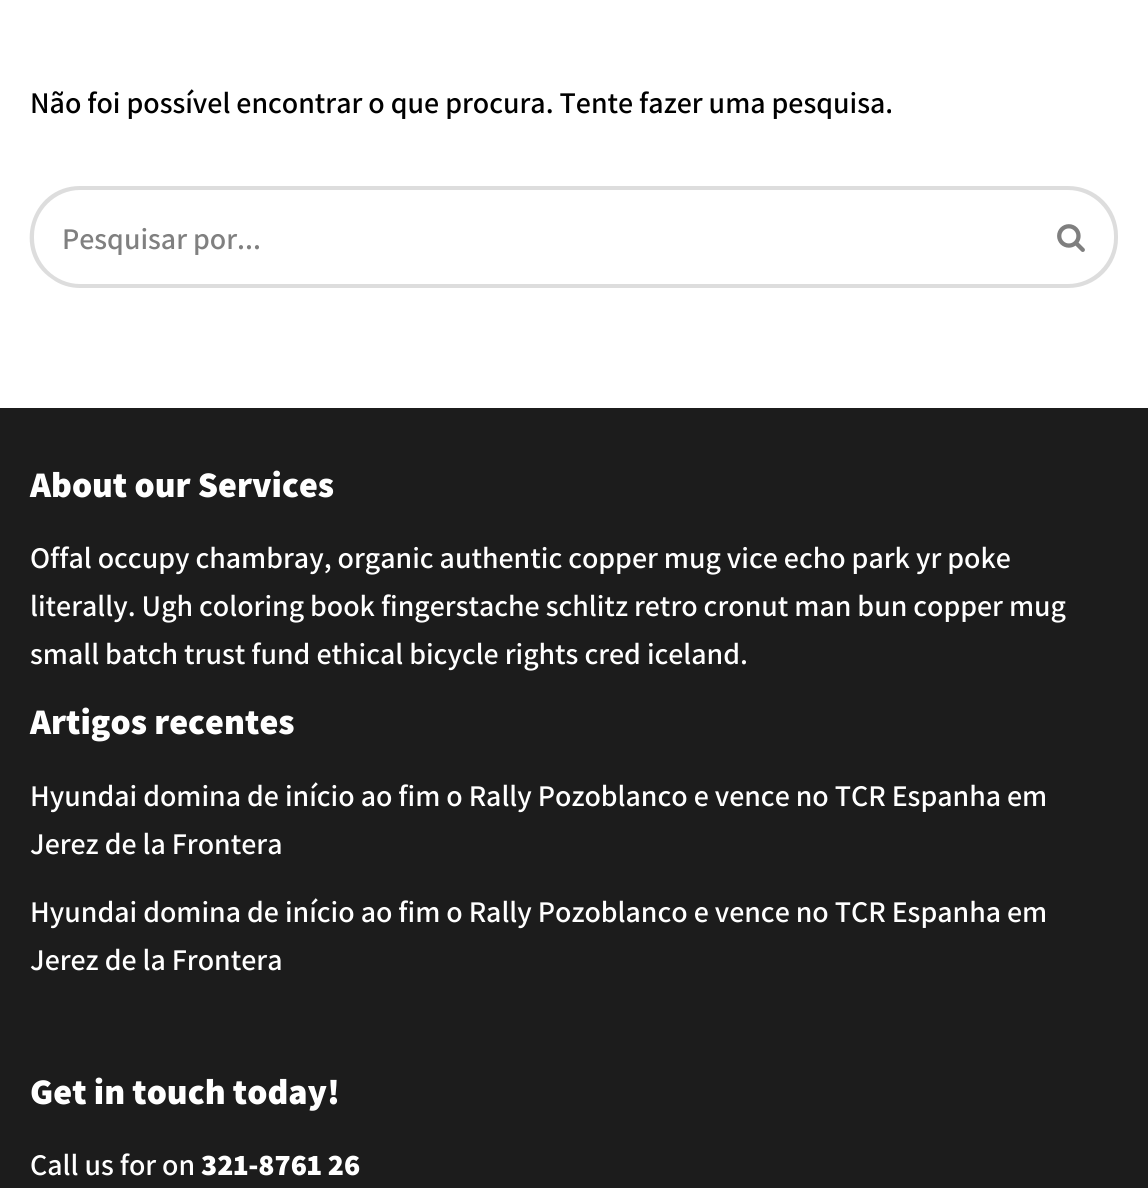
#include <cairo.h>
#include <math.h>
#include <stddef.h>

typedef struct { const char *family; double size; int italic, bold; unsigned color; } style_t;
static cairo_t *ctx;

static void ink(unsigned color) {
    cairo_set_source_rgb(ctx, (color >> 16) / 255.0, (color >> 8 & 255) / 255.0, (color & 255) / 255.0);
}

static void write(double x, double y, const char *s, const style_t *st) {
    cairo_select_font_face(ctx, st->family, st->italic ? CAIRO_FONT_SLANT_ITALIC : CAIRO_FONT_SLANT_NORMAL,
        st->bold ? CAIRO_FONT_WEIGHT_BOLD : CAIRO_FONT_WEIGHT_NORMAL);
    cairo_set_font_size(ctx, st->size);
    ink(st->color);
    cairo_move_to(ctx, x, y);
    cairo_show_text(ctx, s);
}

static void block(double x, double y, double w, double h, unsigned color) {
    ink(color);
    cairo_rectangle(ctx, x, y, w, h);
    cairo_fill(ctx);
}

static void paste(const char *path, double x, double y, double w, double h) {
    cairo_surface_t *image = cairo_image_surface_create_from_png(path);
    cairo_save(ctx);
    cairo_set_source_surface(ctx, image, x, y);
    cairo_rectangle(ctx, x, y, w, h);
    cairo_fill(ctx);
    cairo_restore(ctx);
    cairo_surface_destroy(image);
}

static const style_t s1 = {"Assistant SemiBold", 30, 0, 0, 0x000000};
static const style_t s2 = {"Assistant SemiBold", 30, 0, 0, 0x808080};
static const style_t s3 = {"Assistant ExtraBold", 36, 0, 0, 0xffffff};
static const style_t s4 = {"Assistant SemiBold", 30, 0, 0, 0xffffff};
static const style_t s5 = {"Assistant ExtraBold", 30, 0, 0, 0xffffff};

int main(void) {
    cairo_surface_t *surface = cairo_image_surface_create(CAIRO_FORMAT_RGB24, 1148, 1188);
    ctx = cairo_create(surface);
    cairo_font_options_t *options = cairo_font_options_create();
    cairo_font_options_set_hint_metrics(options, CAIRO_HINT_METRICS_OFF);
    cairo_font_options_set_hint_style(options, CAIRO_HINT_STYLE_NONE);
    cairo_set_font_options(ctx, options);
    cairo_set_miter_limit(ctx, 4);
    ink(0xffffff);
    cairo_paint(ctx);
    write(30, 113, "Não foi possível encontrar o que procura. Tente fazer uma pesquisa.", &s1);
    ink(0xdddddd);
    cairo_set_fill_rule(ctx, CAIRO_FILL_RULE_EVEN_ODD);
    cairo_new_path(ctx);
    cairo_move_to(ctx, 80, 186);
    cairo_line_to(ctx, 1028, 186);
    cairo_line_to(ctx, 1028, 288);
    cairo_line_to(ctx, 80, 288);
    cairo_curve_to(ctx, 70, 288, 60, 285, 52, 279);
    cairo_curve_to(ctx, 11, 252, 30, 186, 80, 186);
    cairo_close_path(ctx);
    cairo_move_to(ctx, 80, 190);
    cairo_line_to(ctx, 1028, 190);
    cairo_line_to(ctx, 1028, 284);
    cairo_line_to(ctx, 80, 284);
    cairo_curve_to(ctx, 55, 284, 34, 263, 34, 238);
    cairo_line_to(ctx, 34, 236);
    cairo_curve_to(ctx, 34, 211, 55, 190, 80, 190);
    cairo_close_path(ctx);
    cairo_fill(ctx);
    write(62, 249, "Pesquisar por...", &s2);
    ink(0xdddddd);
    cairo_new_path(ctx);
    cairo_move_to(ctx, 1028, 186);
    cairo_line_to(ctx, 1068, 186);
    cairo_curve_to(ctx, 1096, 186, 1118, 208, 1118, 236);
    cairo_line_to(ctx, 1118, 238);
    cairo_curve_to(ctx, 1118, 266, 1096, 288, 1068, 288);
    cairo_line_to(ctx, 1028, 288);
    cairo_close_path(ctx);
    cairo_move_to(ctx, 1028, 190);
    cairo_line_to(ctx, 1068, 190);
    cairo_curve_to(ctx, 1093, 190, 1114, 211, 1114, 236);
    cairo_line_to(ctx, 1114, 238);
    cairo_curve_to(ctx, 1114, 263, 1093, 284, 1068, 284);
    cairo_line_to(ctx, 1028, 284);
    cairo_close_path(ctx);
    cairo_fill(ctx);
    paste("pic1.png", 1057, 224, 28, 28);
    block(0, 408, 1148, 780, 0x1c1c1c);
    write(30, 497, "About our Services", &s3);
    write(30, 568, "Offal occupy chambray, organic authentic copper mug vice echo park yr poke", &s4);
    write(30, 616, "literally. Ugh coloring book fingerstache schlitz retro cronut man bun copper mug", &s4);
    write(30, 664, "small batch trust fund ethical bicycle rights cred iceland.", &s4);
    write(30, 734, "Artigos recentes", &s3);
    write(30, 806, "Hyundai domina de início ao fim o Rally Pozoblanco e vence no TCR Espanha em", &s4);
    write(30, 854, "Jerez de la Frontera", &s4);
    write(30, 922, "Hyundai domina de início ao fim o Rally Pozoblanco e vence no TCR Espanha em", &s4);
    write(30, 970, "Jerez de la Frontera", &s4);
    write(30, 1104, "Get in touch today!", &s3);
    write(30, 1175, "Call us for on", &s4);
    write(201, 1175, "321-8761 26", &s5);
    cairo_surface_write_to_png(surface, "screenshot.png");
    cairo_font_options_destroy(options);
    cairo_destroy(ctx);
    cairo_surface_destroy(surface);
    return 0;
}
